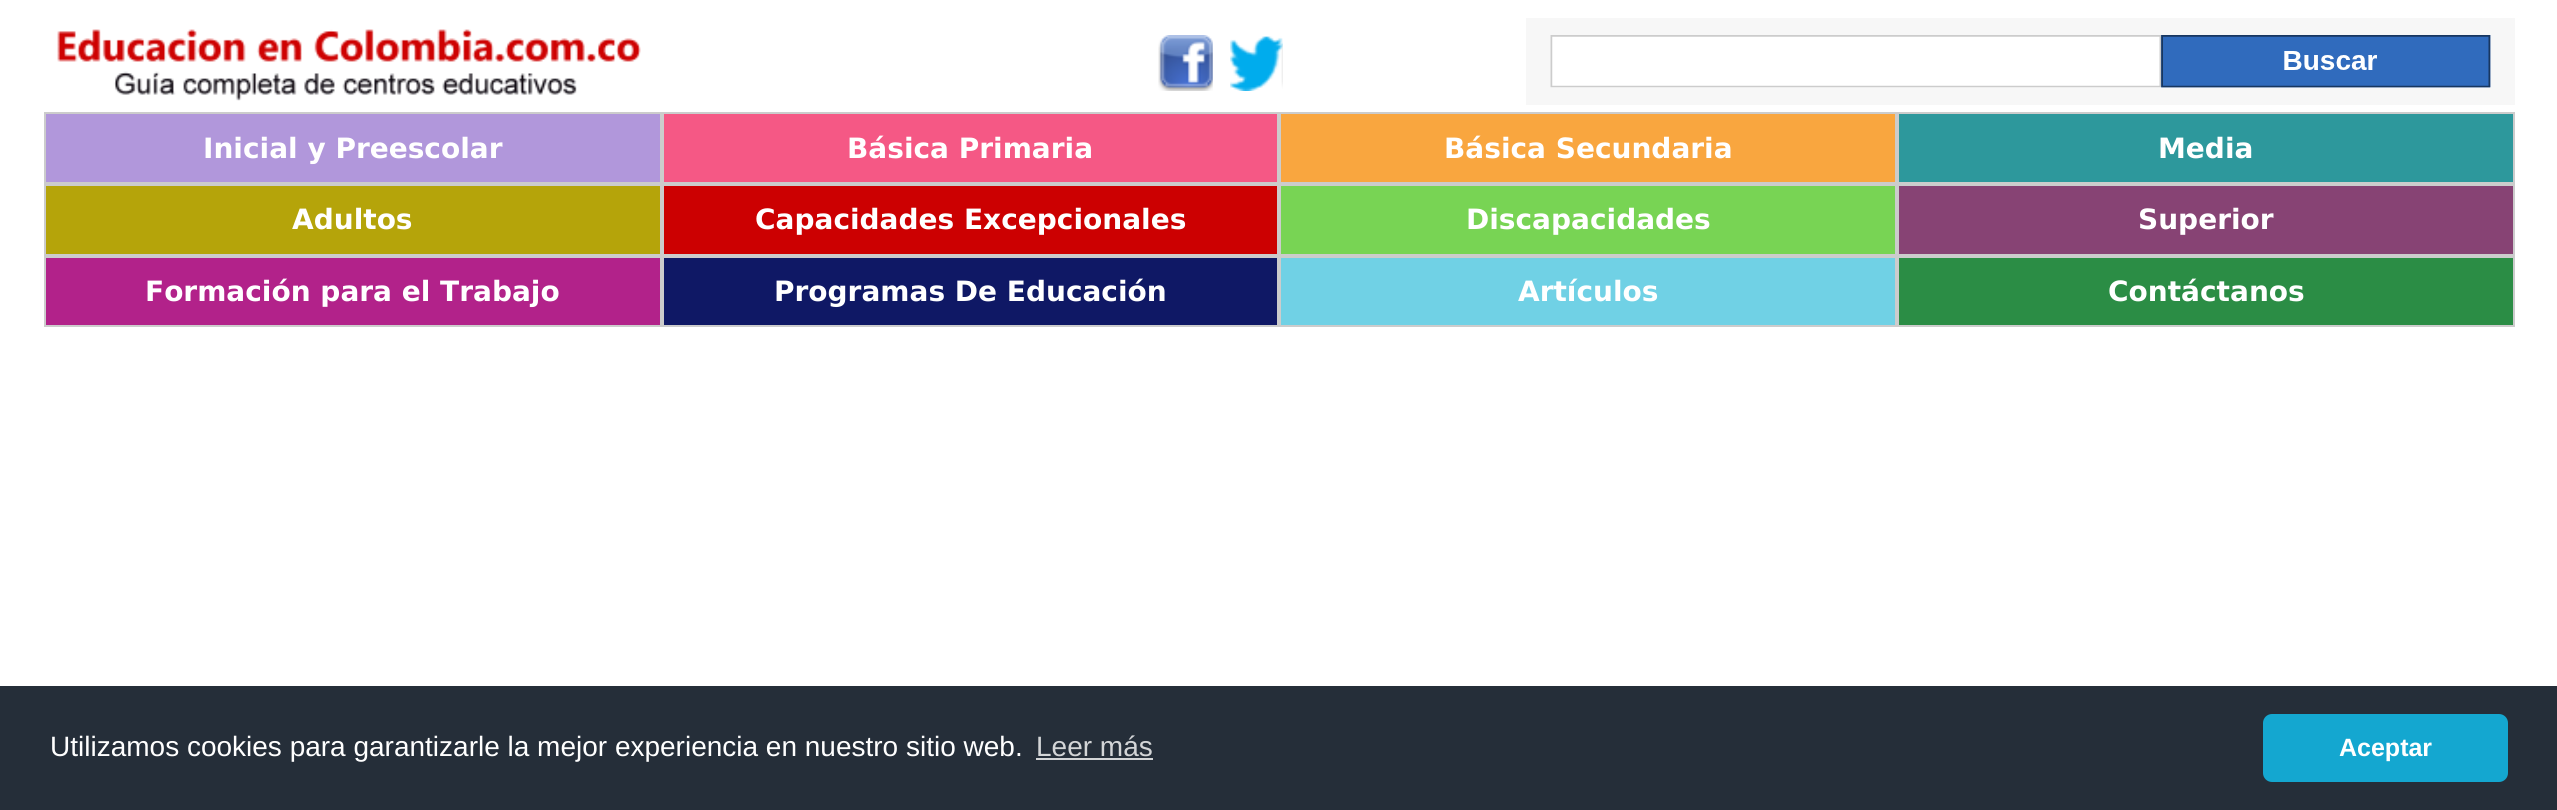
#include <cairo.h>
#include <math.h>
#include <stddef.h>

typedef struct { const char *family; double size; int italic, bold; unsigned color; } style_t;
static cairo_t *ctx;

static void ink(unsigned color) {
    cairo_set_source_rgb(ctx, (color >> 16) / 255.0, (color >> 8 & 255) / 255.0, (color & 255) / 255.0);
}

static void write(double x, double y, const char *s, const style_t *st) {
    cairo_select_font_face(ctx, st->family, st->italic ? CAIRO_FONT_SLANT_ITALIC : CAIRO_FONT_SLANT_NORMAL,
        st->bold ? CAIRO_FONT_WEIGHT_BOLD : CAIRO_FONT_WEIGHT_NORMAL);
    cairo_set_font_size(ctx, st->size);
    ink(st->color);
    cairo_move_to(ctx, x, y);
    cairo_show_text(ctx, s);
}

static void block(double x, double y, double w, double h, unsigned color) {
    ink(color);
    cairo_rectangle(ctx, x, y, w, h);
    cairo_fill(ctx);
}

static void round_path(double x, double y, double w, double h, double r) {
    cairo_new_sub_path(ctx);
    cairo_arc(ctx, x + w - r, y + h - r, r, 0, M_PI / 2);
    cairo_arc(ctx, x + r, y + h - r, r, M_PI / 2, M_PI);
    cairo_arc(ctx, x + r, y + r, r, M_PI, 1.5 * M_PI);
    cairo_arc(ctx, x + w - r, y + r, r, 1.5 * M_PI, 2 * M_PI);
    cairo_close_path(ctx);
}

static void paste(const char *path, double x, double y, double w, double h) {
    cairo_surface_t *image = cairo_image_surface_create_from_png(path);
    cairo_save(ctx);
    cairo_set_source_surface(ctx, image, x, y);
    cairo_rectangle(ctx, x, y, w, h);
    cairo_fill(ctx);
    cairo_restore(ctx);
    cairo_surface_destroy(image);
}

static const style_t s1 = {"DejaVu Sans", 28, 0, 1, 0xffffff};
static const style_t s2 = {"Liberation Sans", 28, 0, 0, 0xffffff};
static const style_t s3 = {"Liberation Sans", 28, 0, 0, 0xd3d5d7};
static const style_t s4 = {"Liberation Sans", 25, 0, 1, 0xffffff};

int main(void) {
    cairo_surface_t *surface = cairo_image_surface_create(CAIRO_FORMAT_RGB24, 2557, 810);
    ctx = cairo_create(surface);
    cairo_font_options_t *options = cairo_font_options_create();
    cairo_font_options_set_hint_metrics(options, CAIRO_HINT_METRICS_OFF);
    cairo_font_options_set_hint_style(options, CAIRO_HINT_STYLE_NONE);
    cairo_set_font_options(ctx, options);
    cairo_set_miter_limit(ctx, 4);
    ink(0xffffff);
    cairo_paint(ctx);
    paste("pic1.png", 57, 29, 584, 72);
    paste("pic2.png", 1158, 35, 55, 56);
    paste("pic3.png", 1230, 36, 53, 55);
    block(1526, 18, 989, 87, 0xf7f7f7);
    paste("pic4.png", 1550, 35, 941, 53);
    ink(0xb197db);
    cairo_rectangle(ctx, 45, 113, 616, 70);
    cairo_fill_preserve(ctx);
    ink(0xcccccc);
    cairo_stroke(ctx);
    write(203, 158, "Inicial y Preescolar", &s1);
    ink(0xf55885);
    cairo_rectangle(ctx, 663, 113, 615, 70);
    cairo_fill_preserve(ctx);
    ink(0xcccccc);
    cairo_stroke(ctx);
    write(847, 158, "Básica Primaria", &s1);
    ink(0xf9a63f);
    cairo_rectangle(ctx, 1280, 113, 616, 70);
    cairo_fill_preserve(ctx);
    ink(0xcccccc);
    cairo_stroke(ctx);
    write(1444, 158, "Básica Secundaria", &s1);
    ink(0x2d989c);
    cairo_rectangle(ctx, 1898, 113, 616, 70);
    cairo_fill_preserve(ctx);
    ink(0xcccccc);
    cairo_stroke(ctx);
    write(2158, 158, "Media", &s1);
    ink(0xb5a40a);
    cairo_rectangle(ctx, 45, 185, 616, 70);
    cairo_fill_preserve(ctx);
    ink(0xcccccc);
    cairo_stroke(ctx);
    write(292, 229, "Adultos", &s1);
    ink(0xcc0001);
    cairo_rectangle(ctx, 663, 185, 615, 70);
    cairo_fill_preserve(ctx);
    ink(0xcccccc);
    cairo_stroke(ctx);
    write(755, 229, "Capacidades Excepcionales", &s1);
    ink(0x78d454);
    cairo_rectangle(ctx, 1280, 185, 616, 70);
    cairo_fill_preserve(ctx);
    ink(0xcccccc);
    cairo_stroke(ctx);
    write(1466, 229, "Discapacidades", &s1);
    ink(0x874374);
    cairo_rectangle(ctx, 1898, 185, 616, 70);
    cairo_fill_preserve(ctx);
    ink(0xcccccc);
    cairo_stroke(ctx);
    write(2138, 229, "Superior", &s1);
    ink(0xb2228a);
    cairo_rectangle(ctx, 45, 257, 616, 69);
    cairo_fill_preserve(ctx);
    ink(0xcccccc);
    cairo_stroke(ctx);
    write(145, 301, "Formación para el Trabajo", &s1);
    ink(0x0f1865);
    cairo_rectangle(ctx, 663, 257, 615, 69);
    cairo_fill_preserve(ctx);
    ink(0xcccccc);
    cairo_stroke(ctx);
    write(774, 301, "Programas De Educación", &s1);
    ink(0x70d1e5);
    cairo_rectangle(ctx, 1280, 257, 616, 69);
    cairo_fill_preserve(ctx);
    ink(0xcccccc);
    cairo_stroke(ctx);
    write(1518, 301, "Artículos", &s1);
    ink(0x2b8d45);
    cairo_rectangle(ctx, 1898, 257, 616, 69);
    cairo_fill_preserve(ctx);
    ink(0xcccccc);
    cairo_stroke(ctx);
    write(2108, 301, "Contáctanos", &s1);
    block(0, 686, 2557, 124, 0x252e39);
    write(50, 756, "Utilizamos cookies para garantizarle la mejor experiencia en nuestro sitio web.", &s2);
    write(1036, 756, "Leer más", &s3);
    block(1036, 758, 117, 2, 0xd3d5d7);
    ink(0x14a7d0);
    round_path(2263, 714, 245, 68, 9);
    cairo_fill(ctx);
    write(2339, 756, "Aceptar", &s4);
    cairo_surface_write_to_png(surface, "screenshot.png");
    cairo_font_options_destroy(options);
    cairo_destroy(ctx);
    cairo_surface_destroy(surface);
    return 0;
}
